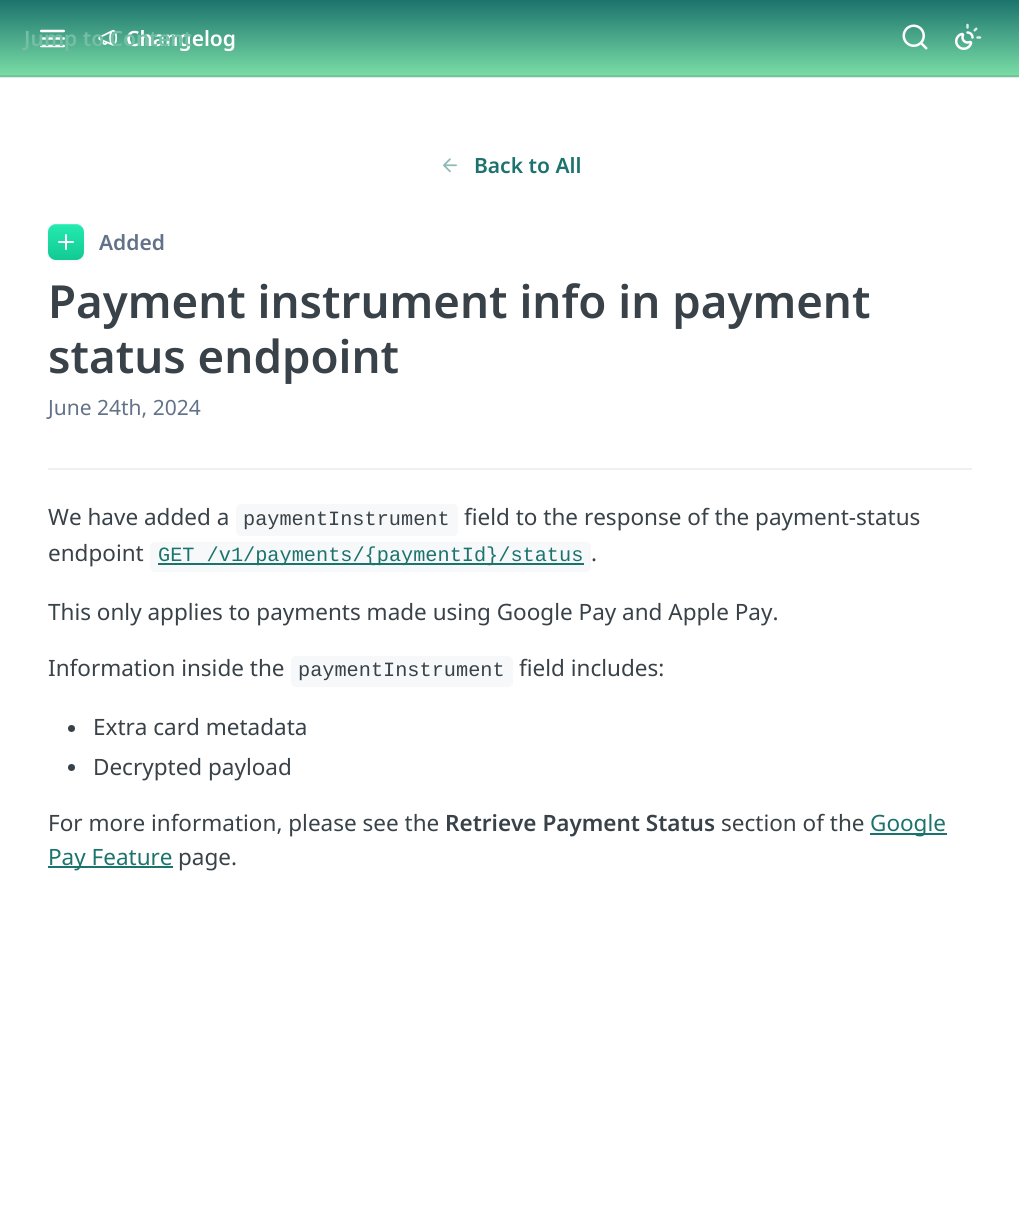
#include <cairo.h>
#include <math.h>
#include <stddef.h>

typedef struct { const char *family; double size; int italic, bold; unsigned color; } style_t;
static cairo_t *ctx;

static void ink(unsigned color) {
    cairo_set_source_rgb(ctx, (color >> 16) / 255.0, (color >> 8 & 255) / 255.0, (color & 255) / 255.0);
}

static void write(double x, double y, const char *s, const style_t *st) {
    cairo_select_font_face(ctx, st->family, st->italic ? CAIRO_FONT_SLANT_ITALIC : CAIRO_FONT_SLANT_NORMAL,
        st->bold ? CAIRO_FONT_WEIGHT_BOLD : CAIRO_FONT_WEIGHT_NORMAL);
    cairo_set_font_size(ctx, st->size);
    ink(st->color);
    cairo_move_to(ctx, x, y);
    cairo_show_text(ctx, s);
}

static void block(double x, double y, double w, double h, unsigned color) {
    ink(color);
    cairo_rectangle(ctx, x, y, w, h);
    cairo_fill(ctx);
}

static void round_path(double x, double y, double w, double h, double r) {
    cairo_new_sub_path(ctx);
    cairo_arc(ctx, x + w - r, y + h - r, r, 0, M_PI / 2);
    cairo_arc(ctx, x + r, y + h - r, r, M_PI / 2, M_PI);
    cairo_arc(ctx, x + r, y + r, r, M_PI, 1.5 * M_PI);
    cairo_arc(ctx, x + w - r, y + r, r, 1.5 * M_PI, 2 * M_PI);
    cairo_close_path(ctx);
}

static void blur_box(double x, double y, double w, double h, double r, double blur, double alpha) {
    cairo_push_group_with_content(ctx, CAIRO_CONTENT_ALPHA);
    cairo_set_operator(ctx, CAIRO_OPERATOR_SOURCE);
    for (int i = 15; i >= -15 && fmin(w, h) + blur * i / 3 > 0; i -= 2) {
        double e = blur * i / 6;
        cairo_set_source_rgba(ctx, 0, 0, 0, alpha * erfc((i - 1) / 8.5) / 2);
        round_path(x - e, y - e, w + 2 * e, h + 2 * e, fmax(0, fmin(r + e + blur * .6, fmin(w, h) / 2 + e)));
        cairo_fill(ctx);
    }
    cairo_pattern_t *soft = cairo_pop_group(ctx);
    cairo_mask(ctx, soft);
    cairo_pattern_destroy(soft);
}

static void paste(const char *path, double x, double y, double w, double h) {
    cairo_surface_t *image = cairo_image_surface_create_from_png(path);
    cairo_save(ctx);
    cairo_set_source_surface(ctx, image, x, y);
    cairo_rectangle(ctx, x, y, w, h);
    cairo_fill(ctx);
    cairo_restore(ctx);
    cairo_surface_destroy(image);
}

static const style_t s1 = {"Noto Sans SemiBold", 21, 0, 0, 0xffffff};
static const style_t s2 = {"Noto Sans SemiBold", 21, 0, 0, 0x74bea5};
static const style_t s3 = {"Noto Sans SemiBold", 21, 0, 0, 0x1c736d};
static const style_t s4 = {"Noto Sans SemiBold", 21, 0, 0, 0x637288};
static const style_t s5 = {"Noto Sans SemiBold", 45.6, 0, 0, 0x384248};
static const style_t s6 = {"Noto Sans", 21, 0, 0, 0x637288};
static const style_t s7 = {"Noto Sans", 22.5, 0, 0, 0x384248};
static const style_t s8 = {"Liberation Mono", 20.25, 0, 0, 0x384248};
static const style_t s9 = {"Liberation Mono", 20.25, 0, 0, 0x1c736d};
static const style_t s10 = {"Noto Sans SemiBold", 22.5, 0, 0, 0x384248};
static const style_t s11 = {"Noto Sans", 22.5, 0, 0, 0x1c736d};

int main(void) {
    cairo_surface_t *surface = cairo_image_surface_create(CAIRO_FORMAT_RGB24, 1019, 1218);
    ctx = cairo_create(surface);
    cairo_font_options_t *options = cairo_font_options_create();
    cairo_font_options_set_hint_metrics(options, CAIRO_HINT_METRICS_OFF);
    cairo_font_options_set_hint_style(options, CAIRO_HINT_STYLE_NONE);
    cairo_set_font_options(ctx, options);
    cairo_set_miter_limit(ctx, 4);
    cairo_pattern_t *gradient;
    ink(0xffffff);
    cairo_paint(ctx);
    block(0, 77, 1019, 1, 0xe6e6e6);
    gradient = cairo_pattern_create_linear(510, 0, 510, 77);
    cairo_pattern_add_color_stop_rgba(gradient, 0, 0.11, 0.451, 0.427, 1);
    cairo_pattern_add_color_stop_rgba(gradient, 1, 0.482, 0.875, 0.655, 1);
    cairo_set_source(ctx, gradient);
    cairo_pattern_destroy(gradient);
    cairo_rectangle(ctx, 0, 0, 1019, 75);
    cairo_fill(ctx);
    block(0, 75, 1019, 2, 0x6dc796);
    paste("pic3.png", 40, 29, 25, 19);
    paste("pic4.png", 98, 29, 20, 17);
    write(126, 46, "Changelog", &s1);
    write(24, 46, "Jump to Content", &s2);
    paste("pic1.png", 902, 24, 26, 26);
    paste("pic2.png", 955, 23, 27, 27);
    paste("pic5.png", 443, 158, 14, 15);
    write(474, 173, "Back to All", &s3);
    ink(0x000000);
    blur_box(48, 225, 36, 36, 8, 1.5, 0.05);
    gradient = cairo_pattern_create_linear(66, 224, 66, 260);
    cairo_pattern_add_color_stop_rgba(gradient, 0, 0.141, 0.922, 0.69, 1);
    cairo_pattern_add_color_stop_rgba(gradient, 1, 0.071, 0.792, 0.576, 1);
    cairo_set_source(ctx, gradient);
    cairo_pattern_destroy(gradient);
    round_path(48, 224, 36, 36, 8);
    cairo_fill(ctx);
    cairo_set_source_rgba(ctx, 1, 1, 1, 0.2);
    cairo_set_fill_rule(ctx, CAIRO_FILL_RULE_EVEN_ODD);
    cairo_new_path(ctx);
    cairo_move_to(ctx, 56, 225);
    cairo_line_to(ctx, 71.5, 225);
    cairo_curve_to(ctx, 76.5, 225, 82, 225, 84, 230.5);
    cairo_curve_to(ctx, 82.5, 222, 72, 224, 66, 224);
    cairo_curve_to(ctx, 59.5, 224, 48, 222, 48, 232);
    cairo_curve_to(ctx, 48, 228, 51, 225, 56, 225);
    cairo_close_path(ctx);
    cairo_move_to(ctx, 84, 243);
    cairo_curve_to(ctx, 84, 248.5, 84, 252, 83.5, 254.5);
    cairo_curve_to(ctx, 84.5, 251.5, 84, 246.5, 84, 243);
    cairo_close_path(ctx);
    cairo_move_to(ctx, 48.5, 254.5);
    cairo_line_to(ctx, 48, 250);
    cairo_close_path(ctx);
    cairo_fill(ctx);
    paste("pic6.png", 58, 234, 16, 16);
    write(99, 250, "Added", &s4);
    block(48, 468, 924, 2, 0xf0f0f0);
    write(48, 318, "Payment instrument info in payment", &s5);
    write(48, 373, "status endpoint", &s5);
    write(48, 415, "June 24th, 2024", &s6);
    write(48, 525, "We have added a", &s7);
    ink(0xf6f8fa);
    round_path(236, 504, 222, 32, 5);
    cairo_fill(ctx);
    write(243, 525, "paymentInstrument", &s8);
    write(464, 525, "field to the response of the payment-status", &s7);
    write(48, 561, "endpoint", &s7);
    ink(0xf6f8fa);
    round_path(150, 542, 441, 30, 5);
    cairo_fill(ctx);
    block(158, 563, 426, 2, 0x1c736d);
    write(158, 561, "GET /v1/payments/{paymentId}/status", &s9);
    write(591, 561, ".", &s7);
    write(48, 620, "This only applies to payments made using Google Pay and Apple Pay.", &s7);
    write(48, 676, "Information inside the", &s7);
    ink(0xf6f8fa);
    round_path(291, 656, 222, 31, 5);
    cairo_fill(ctx);
    write(298, 676, "paymentInstrument", &s8);
    write(519, 676, "field includes:", &s7);
    cairo_new_path(ctx);
    cairo_arc(ctx, 71.5, 728.5, 3.5, 0, 2 * M_PI);
    cairo_fill(ctx);
    write(93, 735, "Extra card metadata", &s7);
    cairo_new_path(ctx);
    cairo_arc(ctx, 71.5, 767.5, 3.5, 0, 2 * M_PI);
    cairo_fill(ctx);
    write(93, 775, "Decrypted payload", &s7);
    write(48, 831, "For more information, please see the", &s7);
    write(445, 831, "Retrieve Payment Status", &s10);
    write(721, 831, "section of the", &s7);
    block(870, 833, 77, 2, 0x1c736d);
    write(870, 831, "Google", &s11);
    block(48, 866, 125, 2, 0x1c736d);
    write(48, 865, "Pay Feature", &s11);
    write(178, 865, "page.", &s7);
    cairo_surface_write_to_png(surface, "screenshot.png");
    cairo_font_options_destroy(options);
    cairo_destroy(ctx);
    cairo_surface_destroy(surface);
    return 0;
}
